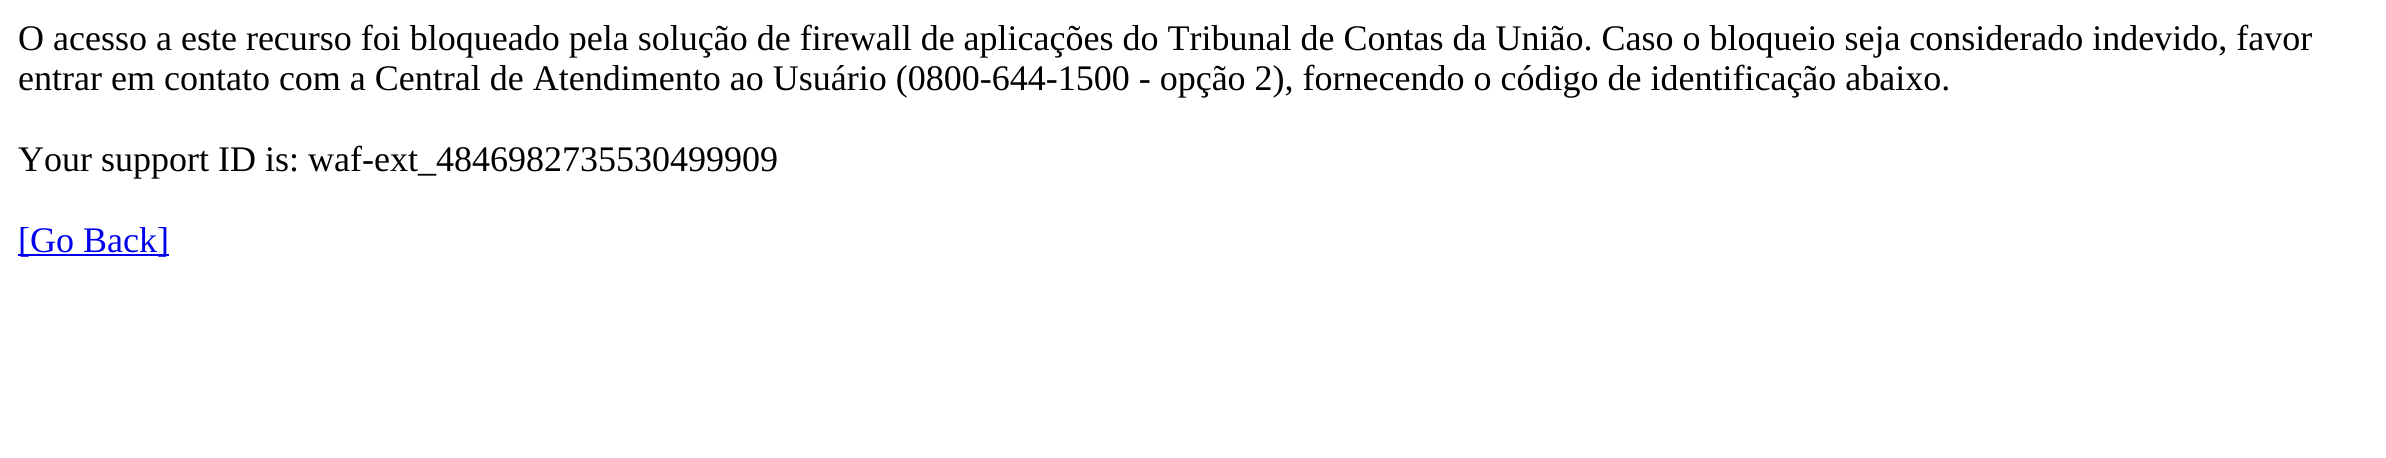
#include <cairo.h>
#include <math.h>
#include <stddef.h>

typedef struct { const char *family; double size; int italic, bold; unsigned color; } style_t;
static cairo_t *ctx;

static void ink(unsigned color) {
    cairo_set_source_rgb(ctx, (color >> 16) / 255.0, (color >> 8 & 255) / 255.0, (color & 255) / 255.0);
}

static void write(double x, double y, const char *s, const style_t *st) {
    cairo_select_font_face(ctx, st->family, st->italic ? CAIRO_FONT_SLANT_ITALIC : CAIRO_FONT_SLANT_NORMAL,
        st->bold ? CAIRO_FONT_WEIGHT_BOLD : CAIRO_FONT_WEIGHT_NORMAL);
    cairo_set_font_size(ctx, st->size);
    ink(st->color);
    cairo_move_to(ctx, x, y);
    cairo_show_text(ctx, s);
}

static void block(double x, double y, double w, double h, unsigned color) {
    ink(color);
    cairo_rectangle(ctx, x, y, w, h);
    cairo_fill(ctx);
}

static const style_t s1 = {"Liberation Serif", 36, 0, 0, 0x000000};
static const style_t s2 = {"Liberation Serif", 36, 0, 0, 0x0000ee};

int main(void) {
    cairo_surface_t *surface = cairo_image_surface_create(CAIRO_FORMAT_RGB24, 2386, 458);
    ctx = cairo_create(surface);
    cairo_font_options_t *options = cairo_font_options_create();
    cairo_font_options_set_hint_metrics(options, CAIRO_HINT_METRICS_OFF);
    cairo_font_options_set_hint_style(options, CAIRO_HINT_STYLE_NONE);
    cairo_set_font_options(ctx, options);
    cairo_set_miter_limit(ctx, 4);
    ink(0xffffff);
    cairo_paint(ctx);
    write(18, 50, "O acesso a este recurso foi bloqueado pela solução de firewall de aplicações do Tribunal de Contas da União. Caso o bloqueio seja considerado indevido, favor", &s1);
    write(18, 90, "entrar em contato com a Central de Atendimento ao Usuário (0800-644-1500 - opção 2), fornecendo o código de identificação abaixo.", &s1);
    write(18, 171, "Your support ID is: waf-ext_4846982735530499909", &s1);
    block(18, 254, 151, 2, 0x0000ee);
    write(18, 252, "[Go Back]", &s2);
    cairo_surface_write_to_png(surface, "screenshot.png");
    cairo_font_options_destroy(options);
    cairo_destroy(ctx);
    cairo_surface_destroy(surface);
    return 0;
}
